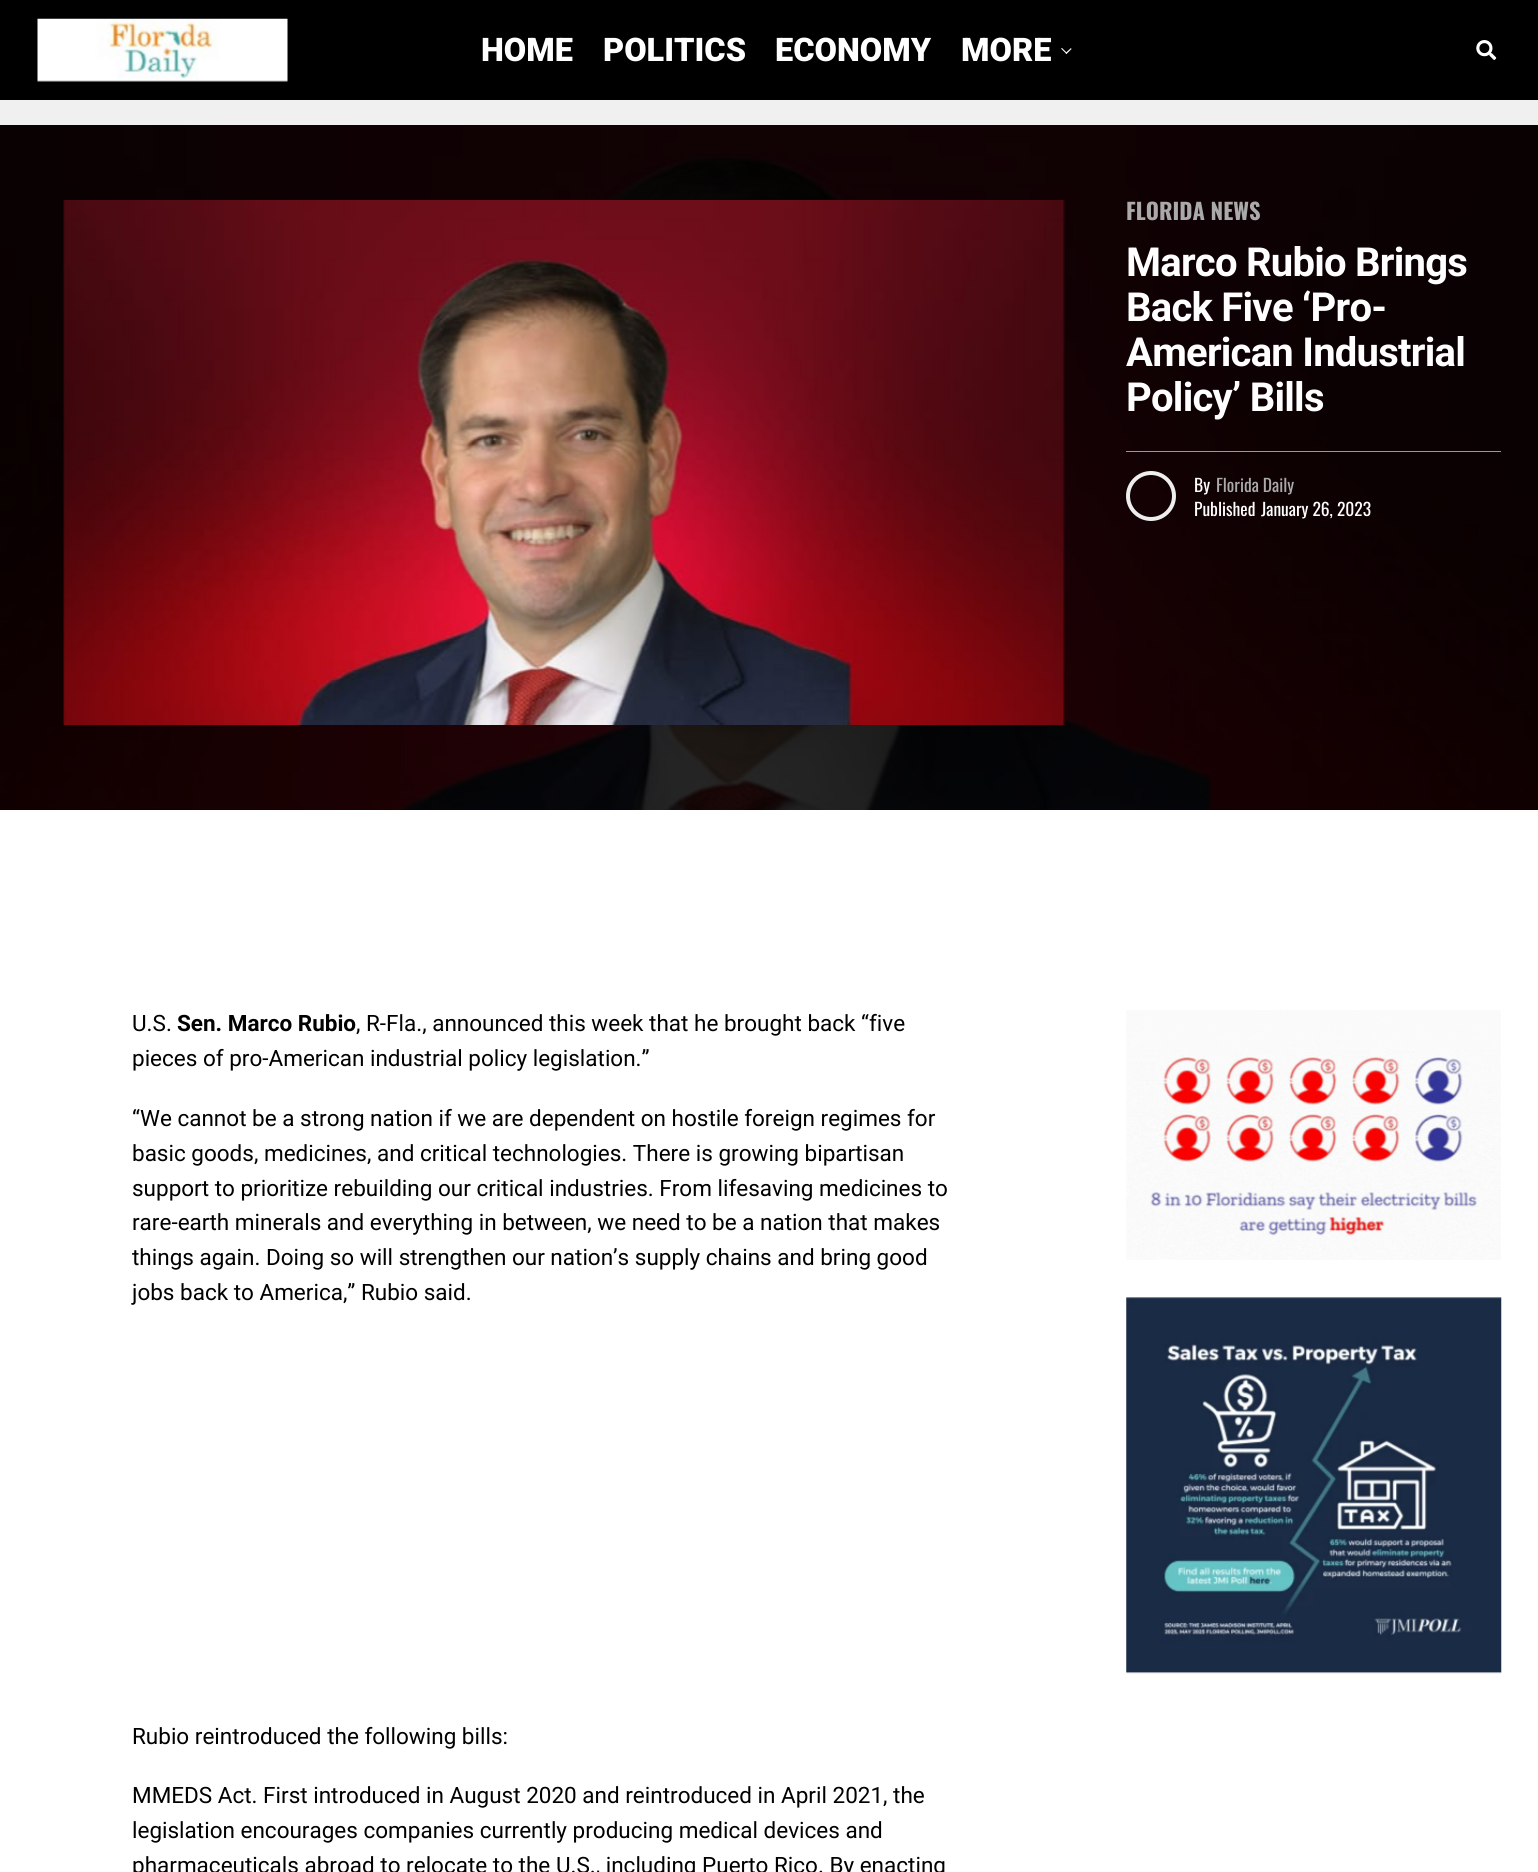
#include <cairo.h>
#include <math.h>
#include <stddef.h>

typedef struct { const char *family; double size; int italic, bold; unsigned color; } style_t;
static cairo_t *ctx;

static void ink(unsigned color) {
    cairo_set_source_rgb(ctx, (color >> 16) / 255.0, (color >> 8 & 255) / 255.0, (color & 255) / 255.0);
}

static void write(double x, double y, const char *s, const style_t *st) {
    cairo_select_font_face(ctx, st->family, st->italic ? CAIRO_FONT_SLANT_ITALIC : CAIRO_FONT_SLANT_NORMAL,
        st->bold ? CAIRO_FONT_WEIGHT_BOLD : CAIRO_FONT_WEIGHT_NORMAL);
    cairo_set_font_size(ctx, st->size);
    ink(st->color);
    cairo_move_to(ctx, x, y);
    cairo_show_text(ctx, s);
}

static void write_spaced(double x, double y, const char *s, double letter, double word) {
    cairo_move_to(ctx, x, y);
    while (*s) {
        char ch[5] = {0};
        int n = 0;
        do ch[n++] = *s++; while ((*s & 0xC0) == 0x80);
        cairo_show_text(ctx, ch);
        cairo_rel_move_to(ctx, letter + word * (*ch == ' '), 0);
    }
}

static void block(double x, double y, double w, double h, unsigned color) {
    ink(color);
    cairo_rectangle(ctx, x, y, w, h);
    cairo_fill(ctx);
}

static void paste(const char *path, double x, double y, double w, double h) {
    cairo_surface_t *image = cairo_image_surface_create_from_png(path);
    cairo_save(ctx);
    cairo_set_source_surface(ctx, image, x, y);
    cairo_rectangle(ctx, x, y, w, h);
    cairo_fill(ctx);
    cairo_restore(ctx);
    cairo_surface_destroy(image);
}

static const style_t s1 = {"Roboto Black", 32.5, 0, 0, 0xffffff};
static const style_t s2 = {"Oswald", 22.5, 0, 1, 0xaaaaaa};
static const style_t s3 = {"Oswald", 17.5, 0, 0, 0xffffff};
static const style_t s4 = {"Oswald", 17.5, 0, 0, 0xaaaaaa};
static const style_t s5 = {"Roboto", 22.5, 0, 0, 0x000000};
static const style_t s6 = {"Roboto", 22.5, 0, 1, 0x000000};

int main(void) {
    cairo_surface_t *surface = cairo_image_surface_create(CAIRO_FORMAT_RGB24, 1538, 1872);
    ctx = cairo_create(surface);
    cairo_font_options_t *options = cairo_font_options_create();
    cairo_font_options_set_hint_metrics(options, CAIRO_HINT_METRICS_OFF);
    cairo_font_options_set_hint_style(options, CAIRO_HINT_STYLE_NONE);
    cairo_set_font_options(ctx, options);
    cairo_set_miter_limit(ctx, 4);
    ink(0xf0f0f0);
    cairo_paint(ctx);
    block(0, 0, 1538, 100, 0x000000);
    paste("pic1.png", 37, 18, 251, 64);
    write(481, 61, "HOME", &s1);
    write(603, 61, "POLITICS", &s1);
    write(775, 61, "ECONOMY", &s1);
    write(961, 61, "MORE", &s1);
    cairo_new_path(ctx);
    cairo_move_to(ctx, 1071, 48);
    cairo_line_to(ctx, 1071.5, 49);
    cairo_line_to(ctx, 1066.5, 54);
    cairo_line_to(ctx, 1065.5, 53);
    cairo_close_path(ctx);
    cairo_fill(ctx);
    cairo_new_path(ctx);
    cairo_move_to(ctx, 1062, 48);
    cairo_line_to(ctx, 1067, 53);
    cairo_line_to(ctx, 1066.5, 54);
    cairo_line_to(ctx, 1061, 48.5);
    cairo_close_path(ctx);
    cairo_fill(ctx);
    paste("pic2.png", 1476, 40, 21, 20);
    block(0, 125, 1538, 685, 0x000000);
    paste("pic3.png", 0, 125, 1538, 685);
    paste("pic4.png", 63, 200, 1002, 525);
    write(1126, 220, "FLORIDA NEWS", &s2);
    cairo_select_font_face(ctx, "Roboto", CAIRO_FONT_SLANT_NORMAL, CAIRO_FONT_WEIGHT_BOLD);
    cairo_set_font_size(ctx, 40);
    ink(0xffffff);
    write_spaced(1126, 276, "Marco Rubio Brings", -0.75, 0);
    write_spaced(1126, 321, "Back Five ‘Pro-", -0.75, 0);
    write_spaced(1126, 366, "American Industrial", -0.75, 0);
    write_spaced(1126, 411, "Policy’ Bills", -0.75, 0);
    block(1126, 451, 375, 1, 0x999999);
    cairo_new_path(ctx);
    cairo_arc(ctx, 1151, 496, 23, 0, 2 * M_PI);
    ink(0xeeeeee);
    cairo_set_line_width(ctx, 4);
    cairo_stroke(ctx);
    write(1194, 492, "By", &s3);
    write(1216, 492, "Florida Daily", &s4);
    write(1194, 516, "Published", &s3);
    write(1261, 516, "January 26, 2023", &s3);
    block(0, 810, 1538, 1062, 0xffffff);
    write(132, 1031, "U.S.", &s5);
    write(177, 1031, "Sen. Marco Rubio", &s6);
    write(356, 1031, ", R-Fla., announced this week that he brought back “five", &s5);
    write(132, 1066, "pieces of pro-American industrial policy legislation.”", &s5);
    write(132, 1126, "“We cannot be a strong nation if we are dependent on hostile foreign regimes for", &s5);
    write(132, 1161, "basic goods, medicines, and critical technologies. There is growing bipartisan", &s5);
    write(132, 1196, "support to prioritize rebuilding our critical industries. From lifesaving medicines to", &s5);
    write(132, 1230, "rare-earth minerals and everything in between, we need to be a nation that makes", &s5);
    write(132, 1265, "things again. Doing so will strengthen our nation’s supply chains and bring good", &s5);
    write(132, 1300, "jobs back to America,” Rubio said.", &s5);
    write(132, 1744, "Rubio reintroduced the following bills:", &s5);
    write(132, 1803, "MMEDS Act. First introduced in August 2020 and reintroduced in April 2021, the", &s5);
    write(132, 1838, "legislation encourages companies currently producing medical devices and", &s5);
    write(132, 1873, "pharmaceuticals abroad to relocate to the U.S., including Puerto Rico. By enacting", &s5);
    paste("pic5.png", 1126, 1010, 375, 250);
    paste("pic6.png", 1126, 1297, 376, 377);
    cairo_surface_write_to_png(surface, "screenshot.png");
    cairo_font_options_destroy(options);
    cairo_destroy(ctx);
    cairo_surface_destroy(surface);
    return 0;
}
